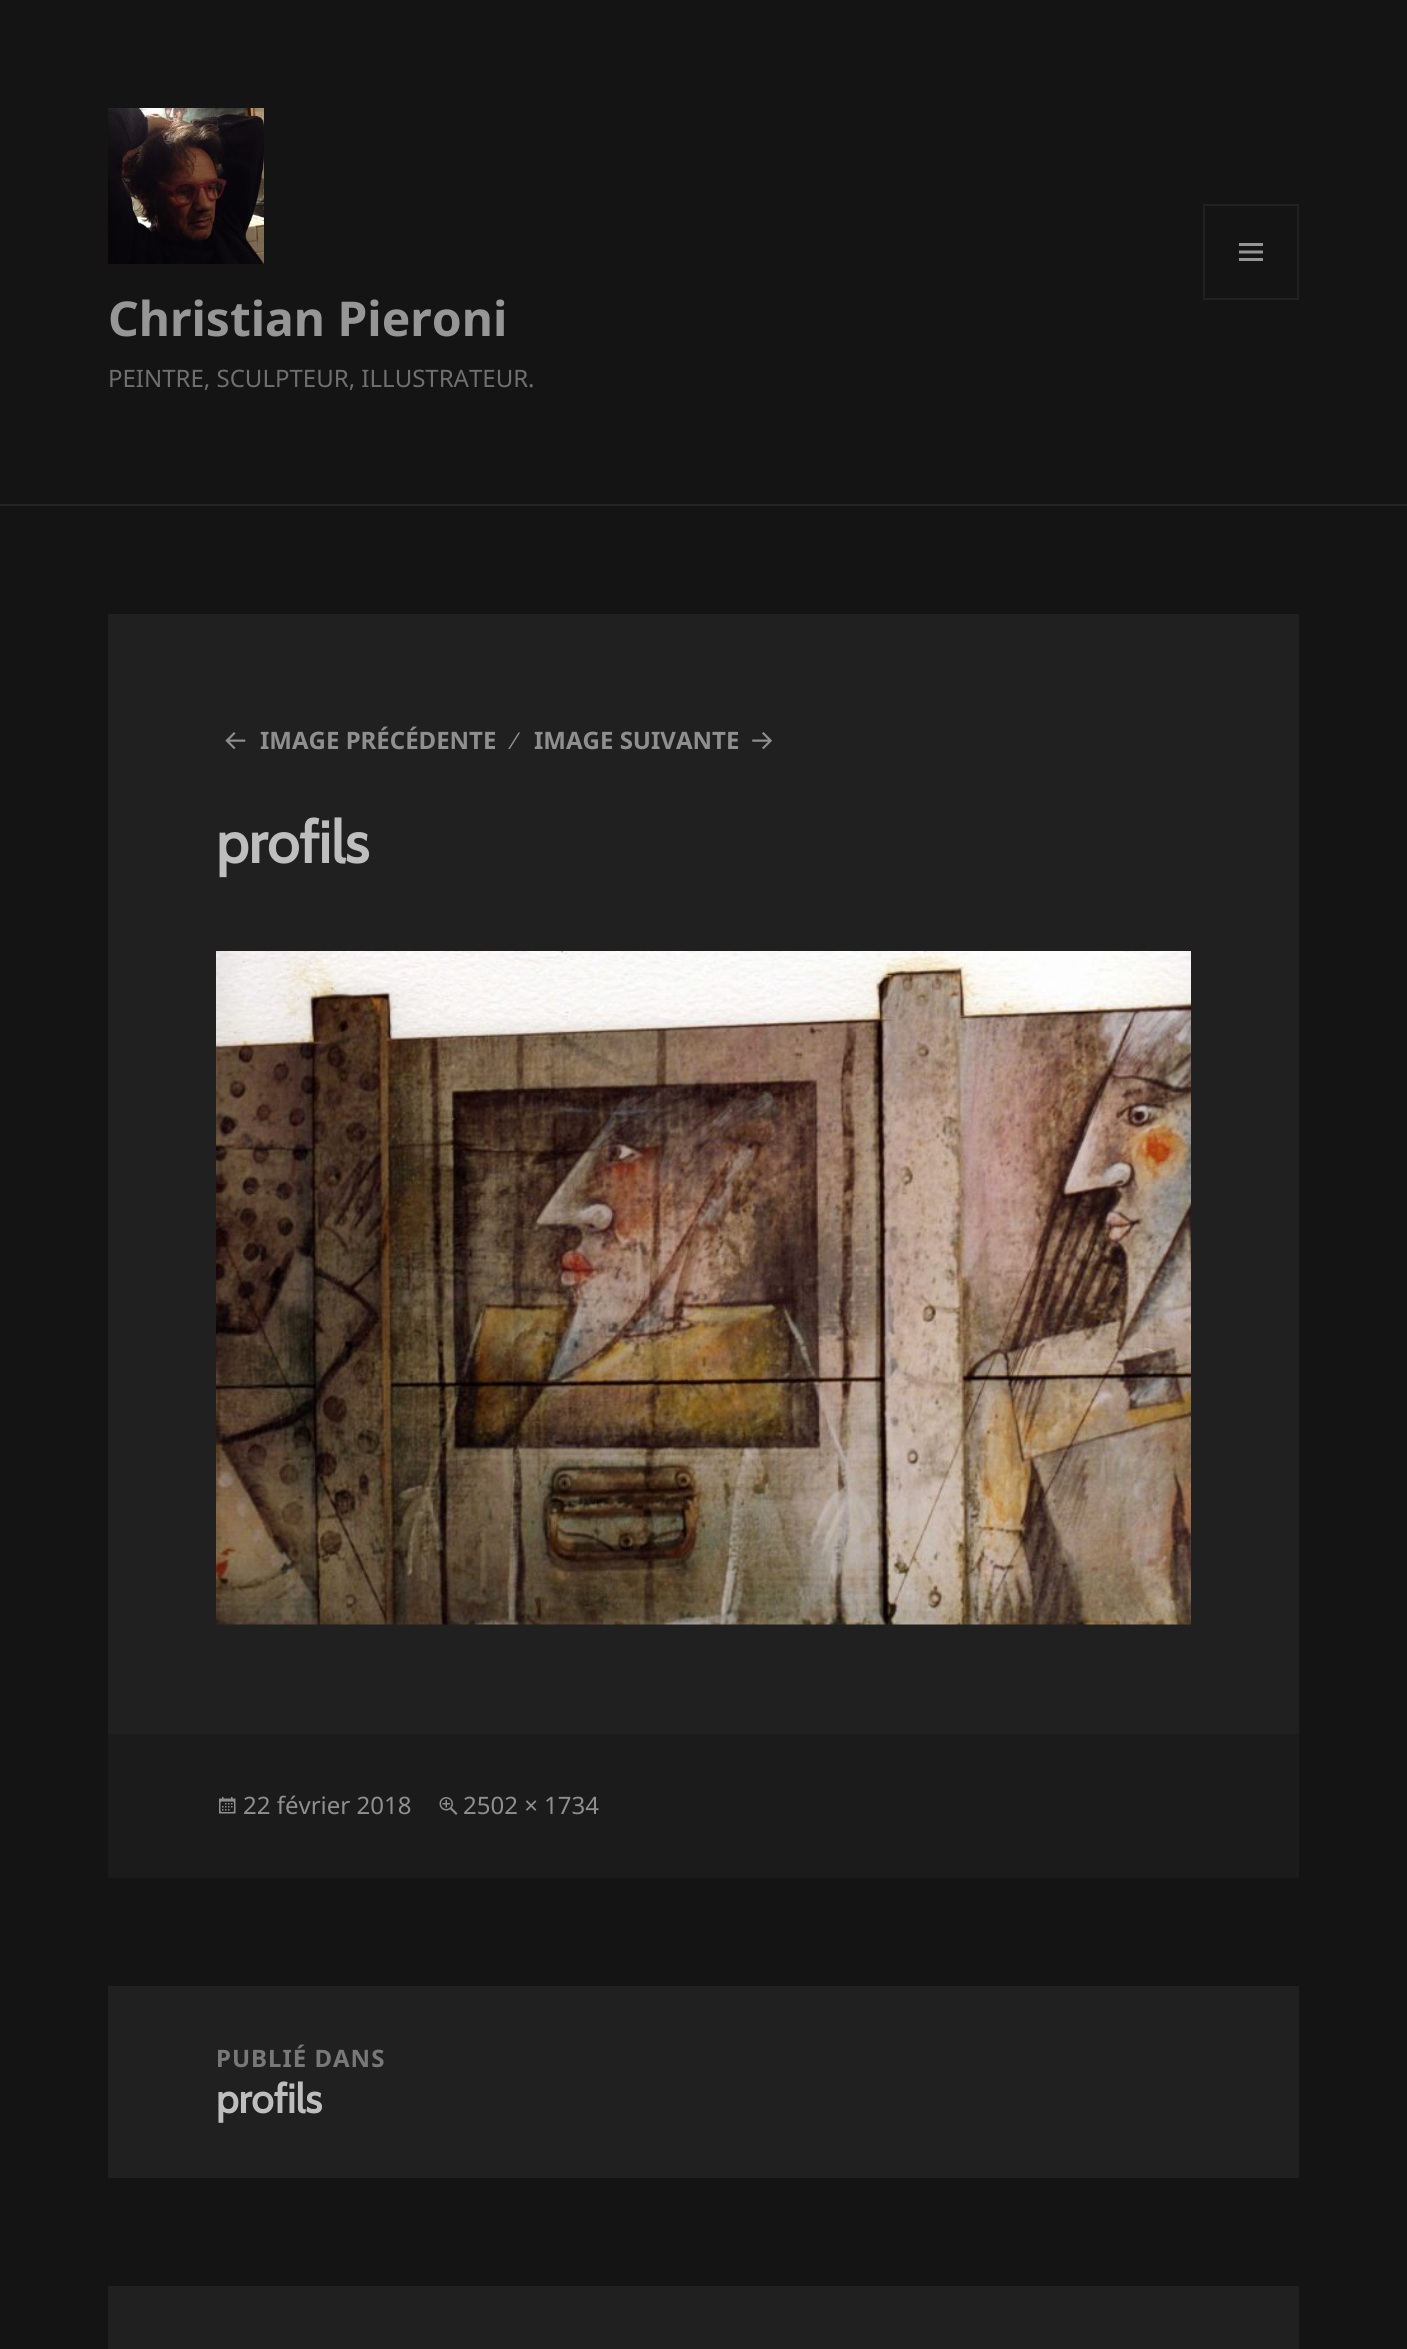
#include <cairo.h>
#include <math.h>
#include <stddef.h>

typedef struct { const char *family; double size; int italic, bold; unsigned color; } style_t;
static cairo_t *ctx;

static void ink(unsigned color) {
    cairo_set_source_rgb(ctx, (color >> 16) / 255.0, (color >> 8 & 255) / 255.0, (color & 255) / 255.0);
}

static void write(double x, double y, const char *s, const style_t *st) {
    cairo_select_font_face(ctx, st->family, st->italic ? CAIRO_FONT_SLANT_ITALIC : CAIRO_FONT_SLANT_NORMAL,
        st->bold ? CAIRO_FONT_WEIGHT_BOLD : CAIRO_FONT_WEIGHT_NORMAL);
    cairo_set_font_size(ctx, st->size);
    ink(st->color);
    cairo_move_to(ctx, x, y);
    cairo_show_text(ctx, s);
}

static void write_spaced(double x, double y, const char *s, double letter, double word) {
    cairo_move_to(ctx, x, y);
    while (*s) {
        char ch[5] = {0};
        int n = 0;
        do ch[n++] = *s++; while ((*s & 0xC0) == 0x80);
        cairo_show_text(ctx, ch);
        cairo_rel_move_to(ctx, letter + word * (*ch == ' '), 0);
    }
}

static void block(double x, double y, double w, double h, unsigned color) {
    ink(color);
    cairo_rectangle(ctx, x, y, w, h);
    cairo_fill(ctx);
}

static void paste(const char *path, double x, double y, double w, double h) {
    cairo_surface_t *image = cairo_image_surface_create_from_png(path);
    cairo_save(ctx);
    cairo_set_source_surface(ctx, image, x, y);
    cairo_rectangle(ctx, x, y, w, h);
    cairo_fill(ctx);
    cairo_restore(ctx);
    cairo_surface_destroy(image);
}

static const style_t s1 = {"Noto Sans", 48, 0, 1, 0x969696};
static const style_t s2 = {"Noto Sans", 24, 0, 0, 0x6f6f6f};
static const style_t s3 = {"Noto Sans", 24, 0, 1, 0x8f8f8f};
static const style_t s4 = {"Liberation Sans", 24, 0, 0, 0x8f8f8f};
static const style_t s5 = {"Cabin", 58.5, 0, 1, 0xbebebe};
static const style_t s6 = {"Noto Sans", 24, 0, 0, 0x8f8f8f};
static const style_t s7 = {"Cabin", 40.5, 0, 1, 0xbebebe};

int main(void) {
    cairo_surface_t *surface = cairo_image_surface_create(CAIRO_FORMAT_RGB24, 1407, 2349);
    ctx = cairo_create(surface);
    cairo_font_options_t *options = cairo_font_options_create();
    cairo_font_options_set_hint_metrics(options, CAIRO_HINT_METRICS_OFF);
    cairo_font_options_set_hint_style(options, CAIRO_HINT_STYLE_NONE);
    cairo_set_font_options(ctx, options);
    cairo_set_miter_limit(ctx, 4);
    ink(0x141414);
    cairo_paint(ctx);
    block(0, 504, 1407, 2, 0x252525);
    paste("pic1.png", 108, 108, 156, 156);
    cairo_rectangle(ctx, 1204, 205, 94, 94);
    ink(0x212121);
    cairo_stroke(ctx);
    paste("pic2.png", 1239, 243, 24, 18);
    write(108, 336, "Christian Pieroni", &s1);
    write(108, 387, "PEINTRE, SCULPTEUR, ILLUSTRATEUR.", &s2);
    block(108, 614, 1191, 1120, 0x202020);
    paste("pic3.png", 225, 732, 21, 18);
    write(260, 749, "IMAGE PRÉCÉDENTE", &s3);
    write(513, 749, "∕", &s4);
    write(534, 749, "IMAGE SUIVANTE", &s3);
    paste("pic4.png", 752, 732, 20, 18);
    write(216, 863, "profils", &s5);
    paste("pic5.png", 216, 951, 975, 674);
    block(108, 1734, 1191, 144, 0x1b1b1b);
    paste("pic6.png", 219, 1797, 17, 17);
    write(243, 1814, "22 février 2018", &s6);
    paste("pic7.png", 439, 1797, 19, 18);
    write(463, 1814, "2502 × 1734", &s6);
    block(108, 1986, 1191, 192, 0x202020);
    cairo_select_font_face(ctx, "Noto Sans", CAIRO_FONT_SLANT_NORMAL, CAIRO_FONT_WEIGHT_BOLD);
    ink(0x787878);
    write_spaced(216, 2067, "PUBLIÉ DANS", 1, 0);
    write(216, 2113, "profils", &s7);
    block(108, 2286, 1191, 63, 0x202020);
    cairo_surface_write_to_png(surface, "screenshot.png");
    cairo_font_options_destroy(options);
    cairo_destroy(ctx);
    cairo_surface_destroy(surface);
    return 0;
}
